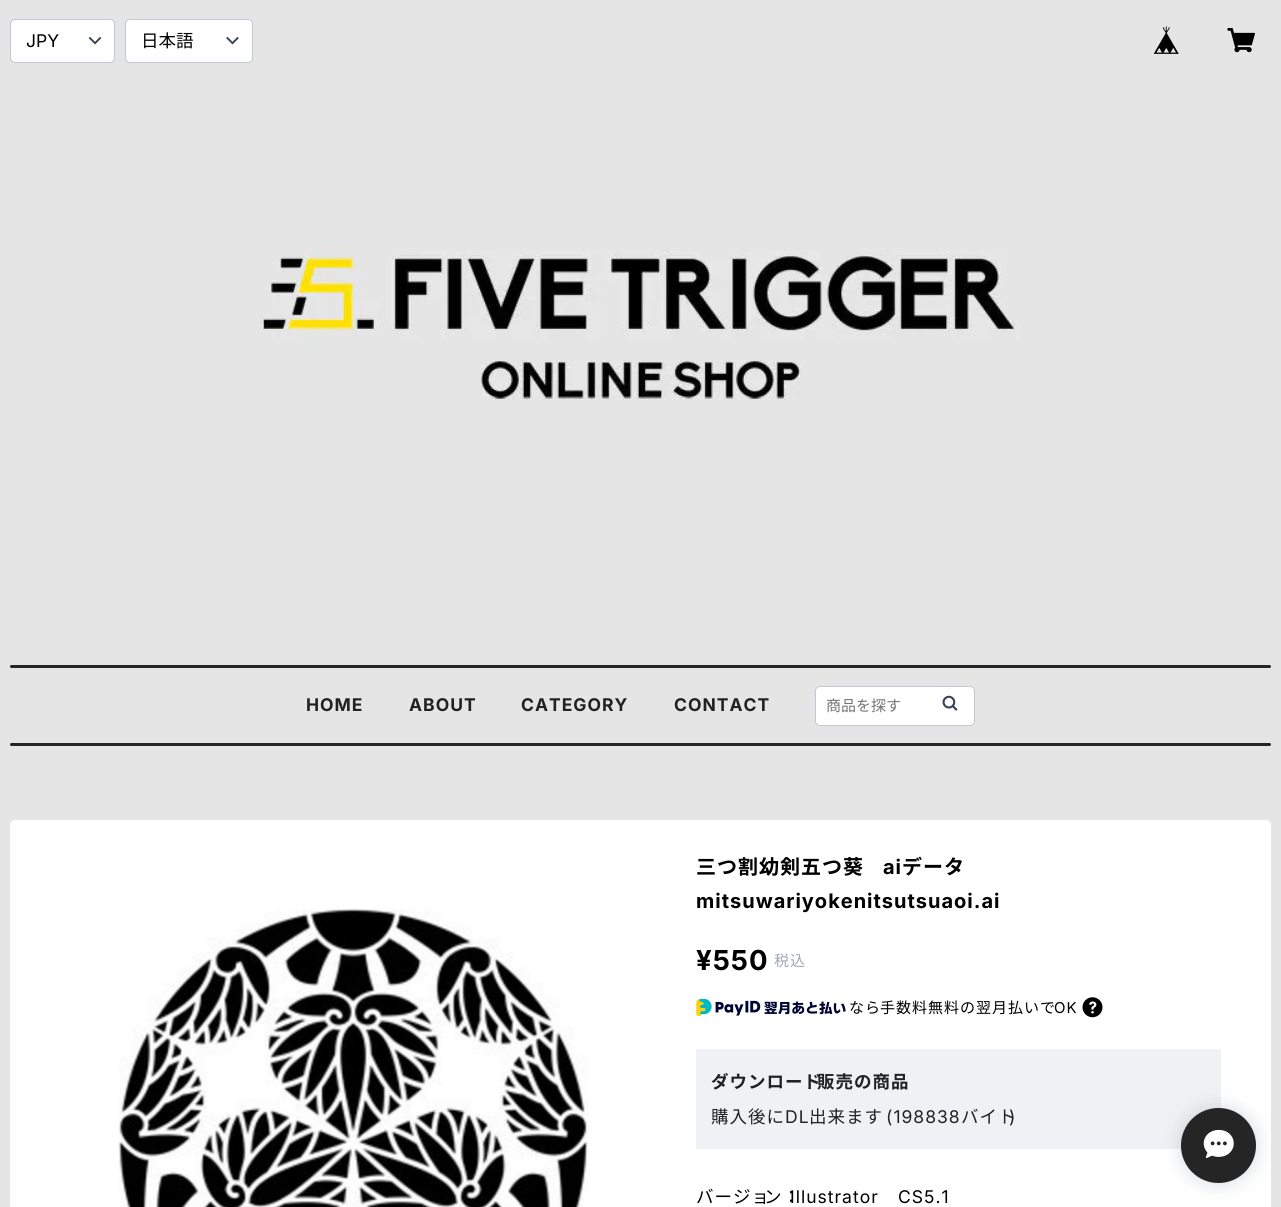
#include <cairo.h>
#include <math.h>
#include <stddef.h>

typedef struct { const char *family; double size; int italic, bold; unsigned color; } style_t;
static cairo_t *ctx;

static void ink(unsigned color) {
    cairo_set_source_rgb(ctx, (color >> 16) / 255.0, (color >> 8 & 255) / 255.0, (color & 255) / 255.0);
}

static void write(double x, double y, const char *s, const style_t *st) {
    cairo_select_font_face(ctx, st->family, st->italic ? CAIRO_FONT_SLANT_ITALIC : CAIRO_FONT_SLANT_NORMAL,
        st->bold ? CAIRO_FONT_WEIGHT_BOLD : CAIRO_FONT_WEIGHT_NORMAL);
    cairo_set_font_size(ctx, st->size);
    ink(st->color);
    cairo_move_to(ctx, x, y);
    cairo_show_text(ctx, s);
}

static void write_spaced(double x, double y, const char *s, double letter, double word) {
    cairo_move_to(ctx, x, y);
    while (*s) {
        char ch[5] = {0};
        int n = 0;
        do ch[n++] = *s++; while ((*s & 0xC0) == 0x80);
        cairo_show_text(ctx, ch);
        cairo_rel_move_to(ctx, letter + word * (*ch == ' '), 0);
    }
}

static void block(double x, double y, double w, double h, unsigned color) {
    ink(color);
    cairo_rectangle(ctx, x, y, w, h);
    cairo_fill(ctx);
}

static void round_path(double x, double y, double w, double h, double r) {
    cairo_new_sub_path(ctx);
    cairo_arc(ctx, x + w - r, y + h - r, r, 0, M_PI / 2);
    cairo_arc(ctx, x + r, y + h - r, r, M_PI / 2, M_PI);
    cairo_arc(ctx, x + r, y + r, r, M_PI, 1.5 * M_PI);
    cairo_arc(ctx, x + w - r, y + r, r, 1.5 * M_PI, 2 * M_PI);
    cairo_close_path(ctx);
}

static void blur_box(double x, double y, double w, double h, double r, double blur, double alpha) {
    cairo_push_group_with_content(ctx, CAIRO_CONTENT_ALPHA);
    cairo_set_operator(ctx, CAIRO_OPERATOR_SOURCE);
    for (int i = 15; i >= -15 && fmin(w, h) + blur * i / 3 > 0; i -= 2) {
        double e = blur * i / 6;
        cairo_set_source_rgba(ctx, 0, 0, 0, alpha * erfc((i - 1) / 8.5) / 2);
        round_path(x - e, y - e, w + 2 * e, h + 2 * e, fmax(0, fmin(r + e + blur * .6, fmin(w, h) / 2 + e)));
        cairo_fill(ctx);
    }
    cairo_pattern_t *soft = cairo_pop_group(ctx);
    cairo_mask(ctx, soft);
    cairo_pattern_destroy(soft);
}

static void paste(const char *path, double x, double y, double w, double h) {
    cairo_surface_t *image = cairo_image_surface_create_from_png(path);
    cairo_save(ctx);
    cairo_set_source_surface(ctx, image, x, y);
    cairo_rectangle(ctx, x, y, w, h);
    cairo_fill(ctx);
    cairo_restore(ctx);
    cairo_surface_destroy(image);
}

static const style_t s1 = {"Inter", 17.5, 0, 0, 0x000000};
static const style_t s2 = {"Noto Sans JP", 17.5, 0, 0, 0x000000};
static const style_t s3 = {"Noto Sans JP", 15, 0, 0, 0x757575};

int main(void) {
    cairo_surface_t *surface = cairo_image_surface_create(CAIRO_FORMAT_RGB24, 1281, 1207);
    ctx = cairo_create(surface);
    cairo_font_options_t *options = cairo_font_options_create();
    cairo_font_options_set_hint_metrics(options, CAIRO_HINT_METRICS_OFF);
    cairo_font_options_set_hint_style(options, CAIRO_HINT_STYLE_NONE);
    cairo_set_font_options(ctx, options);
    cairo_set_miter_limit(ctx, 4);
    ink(0xe5e5e5);
    cairo_paint(ctx);
    ink(0xffffff);
    round_path(10.5, 19.5, 104, 43, 4.5);
    cairo_fill_preserve(ctx);
    ink(0xc2c8d2);
    cairo_set_line_width(ctx, 1);
    cairo_stroke(ctx);
    write(26, 47, "JPY", &s1);
    paste("pic1.png", 88, 37, 14, 8);
    ink(0xffffff);
    round_path(125.5, 19.5, 127, 43, 4.5);
    cairo_fill_preserve(ctx);
    ink(0xc2c8d2);
    cairo_stroke(ctx);
    write(141, 47, "日本語", &s2);
    paste("pic2.png", 226, 36, 13, 9);
    paste("pic3.png", 1153, 26, 26, 28);
    paste("pic4.png", 1227, 28, 28, 25);
    paste("pic5.png", 261, 250, 760, 150);
    ink(0x252525);
    round_path(10, 665, 1261, 3, 1.5);
    cairo_fill(ctx);
    cairo_select_font_face(ctx, "Inter", CAIRO_FONT_SLANT_NORMAL, CAIRO_FONT_WEIGHT_BOLD);
    ink(0x222222);
    write_spaced(306, 711, "HOME", 1, 0);
    write_spaced(409, 711, "ABOUT", 1, 0);
    write_spaced(521, 711, "CATEGORY", 1, 0);
    write_spaced(674, 711, "CONTACT", 1, 0);
    ink(0xffffff);
    round_path(815.5, 686.5, 159, 39, 4.5);
    cairo_fill_preserve(ctx);
    ink(0xc2c8d2);
    cairo_stroke(ctx);
    write(826, 711, "商品を探す", &s3);
    paste("pic6.png", 942, 695, 16, 16);
    ink(0x252525);
    round_path(10, 743, 1261, 3, 1.5);
    cairo_fill(ctx);
    ink(0xffffff);
    round_path(10, 820, 1261, 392, 5);
    cairo_fill(ctx);
    paste("pic7.png", 118, 908, 471, 299);
    cairo_select_font_face(ctx, "Noto Sans JP", CAIRO_FONT_SLANT_NORMAL, CAIRO_FONT_WEIGHT_BOLD);
    cairo_set_font_size(ctx, 20);
    ink(0x000000);
    write_spaced(696, 874, "三つ割幼剣五つ葵", 1, 0);
    cairo_select_font_face(ctx, "Inter", CAIRO_FONT_SLANT_NORMAL, CAIRO_FONT_WEIGHT_BOLD);
    write_spaced(883, 874, "ai", 1, 0);
    cairo_select_font_face(ctx, "Noto Sans JP", CAIRO_FONT_SLANT_NORMAL, CAIRO_FONT_WEIGHT_BOLD);
    write_spaced(902, 874, "データ", 1, 0);
    cairo_select_font_face(ctx, "Inter", CAIRO_FONT_SLANT_NORMAL, CAIRO_FONT_WEIGHT_BOLD);
    write_spaced(696, 908, "mitsuwariyokenitsutsuaoi.ai", 1, 0);
    cairo_set_font_size(ctx, 27.5);
    write_spaced(696, 970, "¥550", 1, 0);
    cairo_select_font_face(ctx, "Noto Sans JP", CAIRO_FONT_SLANT_NORMAL, CAIRO_FONT_WEIGHT_NORMAL);
    cairo_set_font_size(ctx, 15);
    ink(0xa0a7b4);
    write_spaced(774, 966, "税込", 1, 0);
    paste("pic8.png", 696, 999, 150, 17);
    ink(0x000000);
    write_spaced(849, 1013, "なら", 1, 0);
    write_spaced(880, 1013, "手数料無料の", 1, 0);
    write_spaced(976, 1013, "翌月払いで", 1, 0);
    cairo_select_font_face(ctx, "Inter", CAIRO_FONT_SLANT_NORMAL, CAIRO_FONT_WEIGHT_NORMAL);
    write_spaced(1054, 1013, "OK", 1, 0);
    paste("pic9.png", 1082, 997, 21, 21);
    block(696, 1049, 525, 100, 0xf0f1f4);
    cairo_select_font_face(ctx, "Noto Sans JP", CAIRO_FONT_SLANT_NORMAL, CAIRO_FONT_WEIGHT_BOLD);
    cairo_set_font_size(ctx, 17.5);
    ink(0x222222);
    write_spaced(711, 1088, "ダウンロード", 1, 0);
    write_spaced(817, 1088, "販売の商品", 1, 0);
    cairo_select_font_face(ctx, "Noto Sans JP", CAIRO_FONT_SLANT_NORMAL, CAIRO_FONT_WEIGHT_NORMAL);
    write_spaced(711, 1123, "購入後に", 1, 0);
    cairo_select_font_face(ctx, "Inter", CAIRO_FONT_SLANT_NORMAL, CAIRO_FONT_WEIGHT_NORMAL);
    write_spaced(785, 1123, "DL", 1, 0);
    cairo_select_font_face(ctx, "Noto Sans JP", CAIRO_FONT_SLANT_NORMAL, CAIRO_FONT_WEIGHT_NORMAL);
    write_spaced(809, 1123, "出来ます", 1, 0);
    cairo_select_font_face(ctx, "Inter", CAIRO_FONT_SLANT_NORMAL, CAIRO_FONT_WEIGHT_NORMAL);
    write_spaced(886, 1123, "(198838", 1, 0);
    cairo_select_font_face(ctx, "Noto Sans JP", CAIRO_FONT_SLANT_NORMAL, CAIRO_FONT_WEIGHT_NORMAL);
    write_spaced(961, 1123, "バイト", 1, 0);
    cairo_select_font_face(ctx, "Inter", CAIRO_FONT_SLANT_NORMAL, CAIRO_FONT_WEIGHT_NORMAL);
    write_spaced(1009, 1123, ")", 1, 0);
    cairo_select_font_face(ctx, "Noto Sans JP", CAIRO_FONT_SLANT_NORMAL, CAIRO_FONT_WEIGHT_NORMAL);
    ink(0x000000);
    write_spaced(696, 1203, "バージョ", 1, 0);
    write_spaced(764, 1203, "ン：", 1, 0);
    cairo_select_font_face(ctx, "Inter", CAIRO_FONT_SLANT_NORMAL, CAIRO_FONT_WEIGHT_NORMAL);
    write_spaced(790, 1203, "Illustrator", 1, 0);
    write_spaced(898, 1203, "CS5.1", 1, 0);
    ink(0x334258);
    blur_box(1181, 1108, 75, 75, 37.5, 9.5, 0.2);
    ink(0x252525);
    cairo_arc(ctx, 1218.5, 1145.5, 37.5, 0, 2 * M_PI);
    cairo_fill(ctx);
    paste("pic10.png", 1203, 1129, 31, 30);
    cairo_surface_write_to_png(surface, "screenshot.png");
    cairo_font_options_destroy(options);
    cairo_destroy(ctx);
    cairo_surface_destroy(surface);
    return 0;
}
